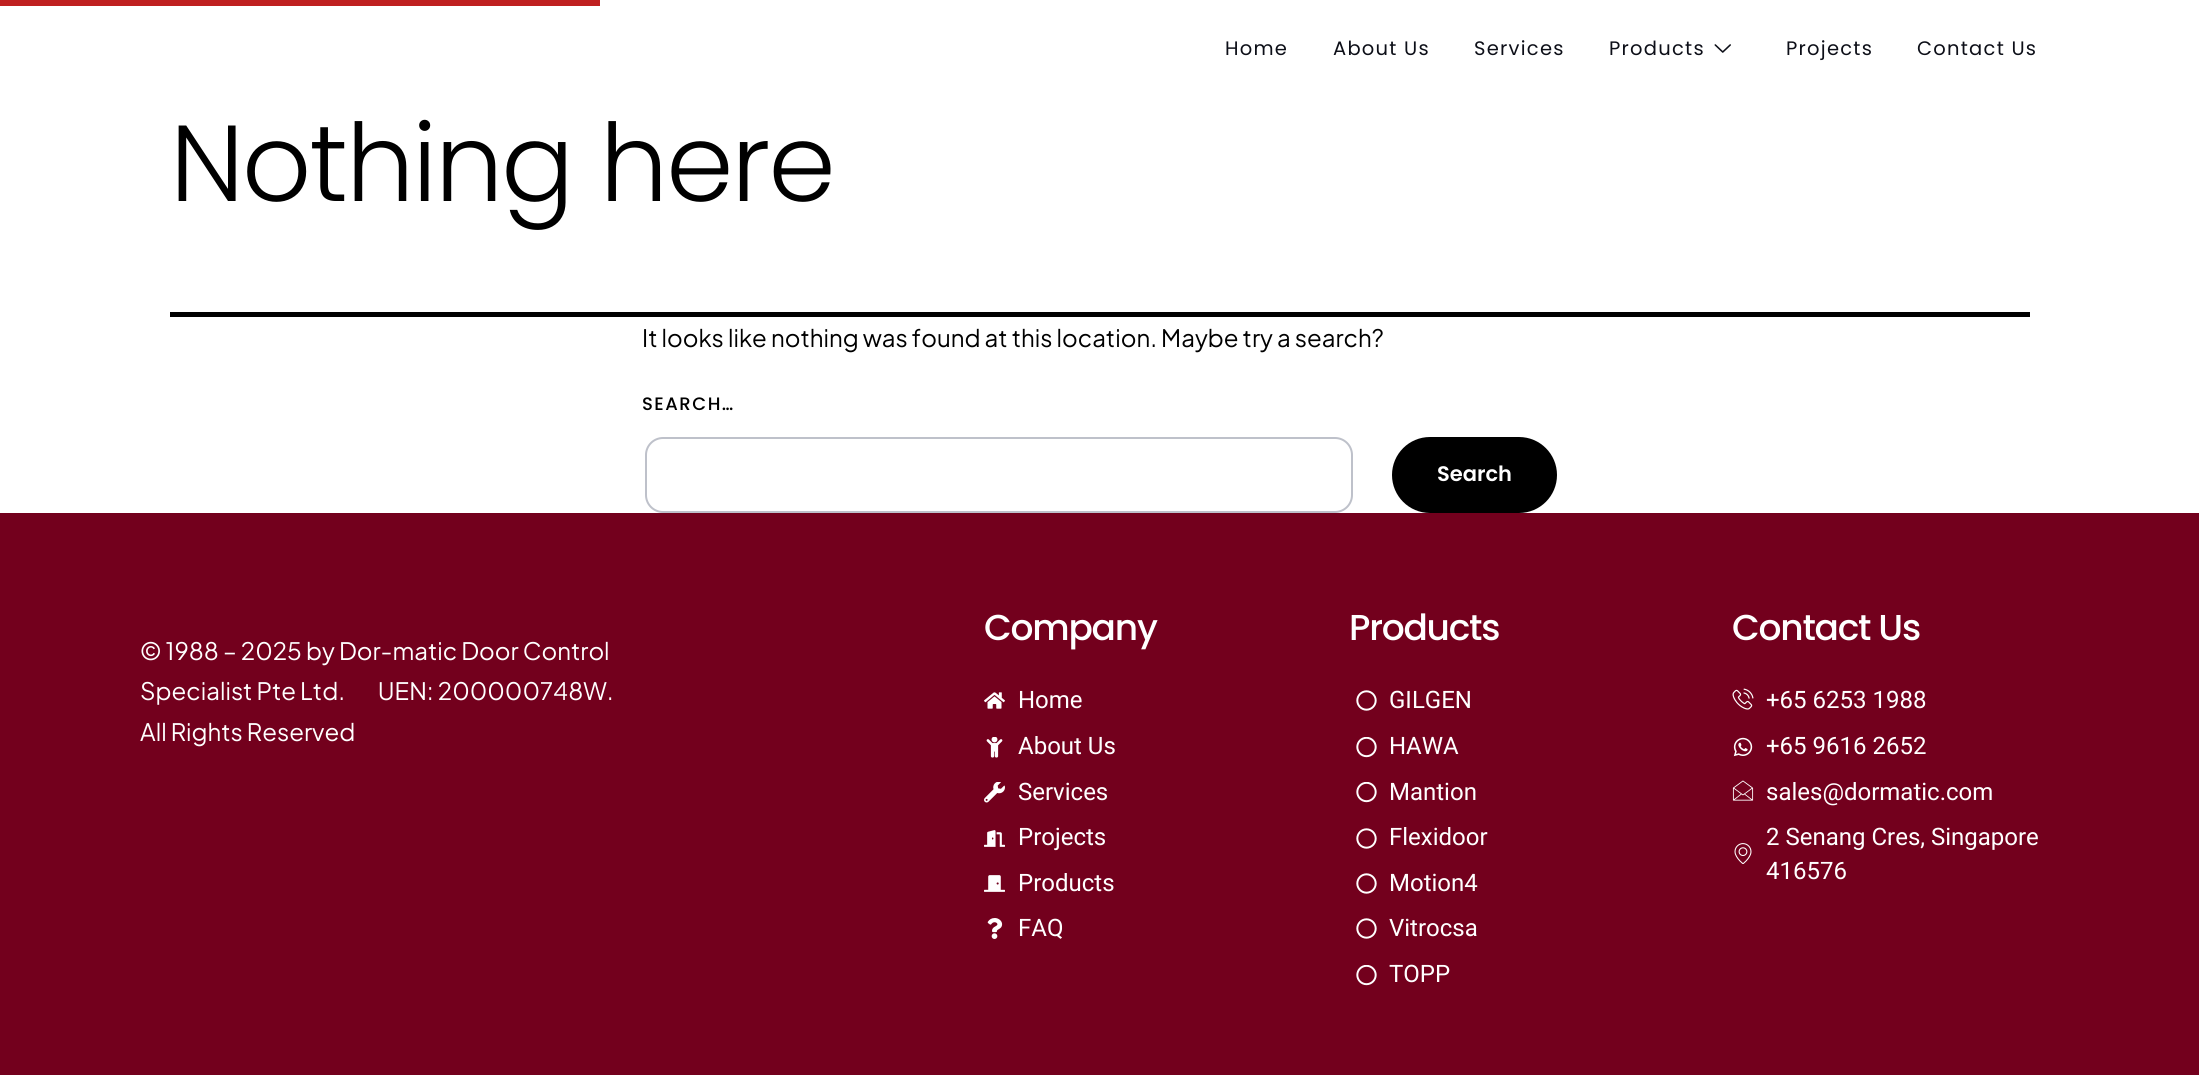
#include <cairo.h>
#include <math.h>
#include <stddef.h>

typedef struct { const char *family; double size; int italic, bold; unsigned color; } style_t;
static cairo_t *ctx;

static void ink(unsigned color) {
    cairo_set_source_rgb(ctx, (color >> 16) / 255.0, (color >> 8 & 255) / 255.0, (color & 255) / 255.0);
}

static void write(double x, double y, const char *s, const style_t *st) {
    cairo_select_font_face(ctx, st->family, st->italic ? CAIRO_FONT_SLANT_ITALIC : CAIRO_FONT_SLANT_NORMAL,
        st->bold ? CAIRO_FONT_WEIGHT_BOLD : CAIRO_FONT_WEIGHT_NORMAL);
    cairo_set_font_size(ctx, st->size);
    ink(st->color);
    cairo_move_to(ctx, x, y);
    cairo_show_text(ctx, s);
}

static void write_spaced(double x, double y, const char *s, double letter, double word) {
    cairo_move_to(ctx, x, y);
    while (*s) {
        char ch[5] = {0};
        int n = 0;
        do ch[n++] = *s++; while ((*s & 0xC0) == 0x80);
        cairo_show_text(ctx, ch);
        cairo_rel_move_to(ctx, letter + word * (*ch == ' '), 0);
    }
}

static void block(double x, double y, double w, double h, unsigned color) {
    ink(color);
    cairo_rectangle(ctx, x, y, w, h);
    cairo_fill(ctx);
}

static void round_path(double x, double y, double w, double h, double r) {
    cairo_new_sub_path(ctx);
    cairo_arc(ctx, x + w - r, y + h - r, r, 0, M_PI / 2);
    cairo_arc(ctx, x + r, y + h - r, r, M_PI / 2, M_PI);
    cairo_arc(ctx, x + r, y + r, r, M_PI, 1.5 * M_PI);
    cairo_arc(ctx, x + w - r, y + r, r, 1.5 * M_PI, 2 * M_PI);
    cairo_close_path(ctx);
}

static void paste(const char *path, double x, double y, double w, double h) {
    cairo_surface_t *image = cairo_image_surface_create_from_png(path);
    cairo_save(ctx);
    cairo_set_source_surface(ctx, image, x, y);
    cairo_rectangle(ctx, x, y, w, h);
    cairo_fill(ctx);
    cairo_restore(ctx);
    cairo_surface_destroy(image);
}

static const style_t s1 = {"Plus Jakarta Sans", 24, 0, 0, 0x000000};
static const style_t s2 = {"Poppins SemiBold", 21, 0, 0, 0xffffff};
static const style_t s3 = {"Plus Jakarta Sans", 24, 0, 0, 0xffffff};
static const style_t s4 = {"Roboto", 24, 0, 0, 0xffffff};

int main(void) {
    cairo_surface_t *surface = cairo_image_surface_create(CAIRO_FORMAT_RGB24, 2199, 1075);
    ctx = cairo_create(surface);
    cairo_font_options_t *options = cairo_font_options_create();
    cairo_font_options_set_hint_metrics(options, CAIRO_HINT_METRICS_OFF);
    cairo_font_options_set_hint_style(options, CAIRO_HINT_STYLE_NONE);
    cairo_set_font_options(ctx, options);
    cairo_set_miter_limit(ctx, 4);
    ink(0xffffff);
    cairo_paint(ctx);
    block(0, 0, 600, 6, 0xbf2020);
    cairo_select_font_face(ctx, "Poppins", CAIRO_FONT_SLANT_NORMAL, CAIRO_FONT_WEIGHT_NORMAL);
    cairo_set_font_size(ctx, 19.5);
    ink(0x0d0f18);
    write_spaced(1225, 55, "Home", 1.25, 0);
    write_spaced(1333, 55, "About Us", 1.25, 0);
    write_spaced(1474, 55, "Services", 1.25, 0);
    write_spaced(1609, 55, "Products", 1.25, 0);
    paste("pic1.png", 1714, 44, 17, 9);
    write_spaced(1786, 55, "Projects", 1.25, 0);
    write_spaced(1917, 55, "Contact Us", 1.25, 0);
    block(170, 312, 1860, 5, 0x000000);
    cairo_select_font_face(ctx, "Poppins Light", CAIRO_FONT_SLANT_NORMAL, CAIRO_FONT_WEIGHT_NORMAL);
    cairo_set_font_size(ctx, 108);
    write_spaced(170, 201, "Nothing here", -2, 0);
    write(642, 347, "It looks like nothing was found at this location. Maybe try a search?", &s1);
    cairo_select_font_face(ctx, "Poppins Medium", CAIRO_FONT_SLANT_NORMAL, CAIRO_FONT_WEIGHT_NORMAL);
    cairo_set_font_size(ctx, 18);
    write_spaced(642, 410, "SEARCH…", 1.5, 0);
    round_path(646, 438, 706, 74, 17);
    ink(0xbec1ca);
    cairo_stroke(ctx);
    ink(0x000000);
    round_path(1392, 437, 165, 76, 38);
    cairo_fill(ctx);
    write(1437, 481, "Search", &s2);
    block(0, 513, 2199, 562, 0x73001d);
    write(140, 660, "© 1988 – 2025 by Dor-matic Door Control", &s3);
    write(140, 700, "Specialist Pte Ltd.        UEN: 200000748W.", &s3);
    write(140, 741, "All Rights Reserved", &s3);
    cairo_select_font_face(ctx, "Poppins Medium", CAIRO_FONT_SLANT_NORMAL, CAIRO_FONT_WEIGHT_NORMAL);
    cairo_set_font_size(ctx, 36);
    write_spaced(984, 640, "Company", -1.25, 0);
    paste("pic2.png", 984, 692, 21, 17);
    write(1018, 708, "Home", &s4);
    paste("pic3.png", 986, 737, 17, 21);
    write(1018, 754, "About Us", &s4);
    paste("pic4.png", 984, 782, 21, 21);
    write(1018, 800, "Services", &s4);
    paste("pic5.png", 984, 830, 21, 17);
    write(1018, 845, "Projects", &s4);
    paste("pic6.png", 984, 875, 21, 17);
    write(1018, 891, "Products", &s4);
    paste("pic7.png", 987, 918, 16, 21);
    write(1018, 936, "FAQ", &s4);
    cairo_select_font_face(ctx, "Poppins Medium", CAIRO_FONT_SLANT_NORMAL, CAIRO_FONT_WEIGHT_NORMAL);
    cairo_set_font_size(ctx, 36);
    write_spaced(1349, 640, "Products", -1.25, 0);
    paste("pic8.png", 1356, 690, 21, 21);
    write(1389, 708, "GILGEN", &s4);
    paste("pic9.png", 1356, 737, 21, 21);
    write(1389, 754, "HAWA", &s4);
    paste("pic9.png", 1356, 782, 21, 21);
    write(1389, 800, "Mantion", &s4);
    paste("pic8.png", 1356, 828, 21, 21);
    write(1389, 845, "Flexidoor", &s4);
    paste("pic8.png", 1356, 873, 21, 21);
    write(1389, 891, "Motion4", &s4);
    paste("pic8.png", 1356, 918, 21, 21);
    write(1389, 936, "Vitrocsa", &s4);
    paste("pic9.png", 1356, 965, 21, 21);
    write(1389, 982, "TOPP", &s4);
    cairo_select_font_face(ctx, "Poppins Medium", CAIRO_FONT_SLANT_NORMAL, CAIRO_FONT_WEIGHT_NORMAL);
    cairo_set_font_size(ctx, 36);
    write_spaced(1732, 640, "Contact Us", -1.25, 0);
    paste("pic10.png", 1732, 688, 22, 22);
    write(1766, 708, "+65 6253 1988", &s4);
    paste("pic11.png", 1733, 737, 20, 20);
    write(1766, 754, "+65 9616 2652", &s4);
    paste("pic12.png", 1732, 780, 22, 21);
    write(1766, 800, "sales@dormatic.com", &s4);
    paste("pic13.png", 1734, 843, 18, 21);
    write(1766, 845, "2 Senang Cres, Singapore", &s4);
    write(1766, 879, "416576", &s4);
    cairo_surface_write_to_png(surface, "screenshot.png");
    cairo_font_options_destroy(options);
    cairo_destroy(ctx);
    cairo_surface_destroy(surface);
    return 0;
}
